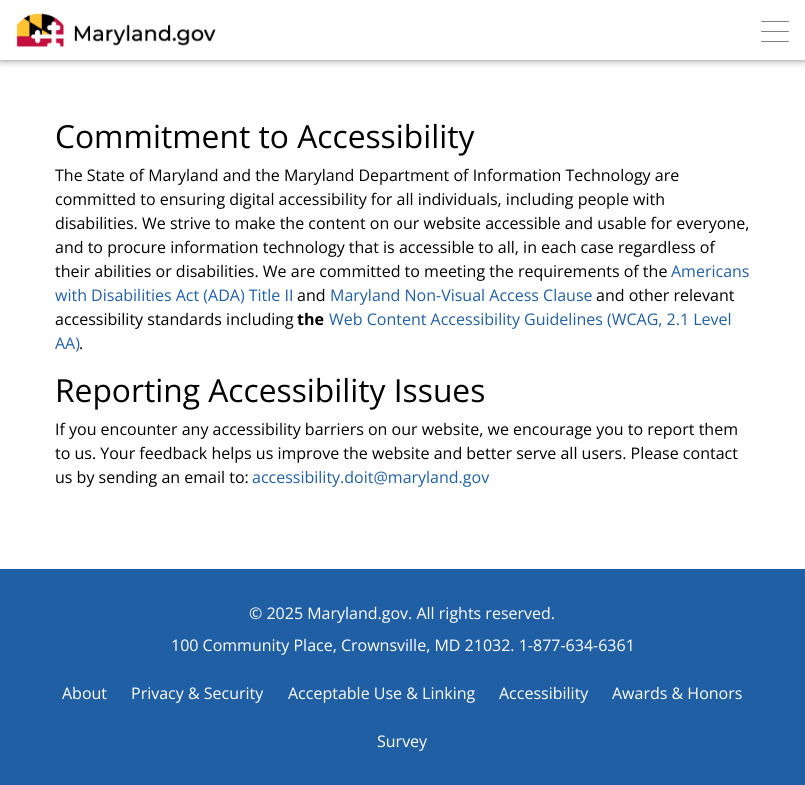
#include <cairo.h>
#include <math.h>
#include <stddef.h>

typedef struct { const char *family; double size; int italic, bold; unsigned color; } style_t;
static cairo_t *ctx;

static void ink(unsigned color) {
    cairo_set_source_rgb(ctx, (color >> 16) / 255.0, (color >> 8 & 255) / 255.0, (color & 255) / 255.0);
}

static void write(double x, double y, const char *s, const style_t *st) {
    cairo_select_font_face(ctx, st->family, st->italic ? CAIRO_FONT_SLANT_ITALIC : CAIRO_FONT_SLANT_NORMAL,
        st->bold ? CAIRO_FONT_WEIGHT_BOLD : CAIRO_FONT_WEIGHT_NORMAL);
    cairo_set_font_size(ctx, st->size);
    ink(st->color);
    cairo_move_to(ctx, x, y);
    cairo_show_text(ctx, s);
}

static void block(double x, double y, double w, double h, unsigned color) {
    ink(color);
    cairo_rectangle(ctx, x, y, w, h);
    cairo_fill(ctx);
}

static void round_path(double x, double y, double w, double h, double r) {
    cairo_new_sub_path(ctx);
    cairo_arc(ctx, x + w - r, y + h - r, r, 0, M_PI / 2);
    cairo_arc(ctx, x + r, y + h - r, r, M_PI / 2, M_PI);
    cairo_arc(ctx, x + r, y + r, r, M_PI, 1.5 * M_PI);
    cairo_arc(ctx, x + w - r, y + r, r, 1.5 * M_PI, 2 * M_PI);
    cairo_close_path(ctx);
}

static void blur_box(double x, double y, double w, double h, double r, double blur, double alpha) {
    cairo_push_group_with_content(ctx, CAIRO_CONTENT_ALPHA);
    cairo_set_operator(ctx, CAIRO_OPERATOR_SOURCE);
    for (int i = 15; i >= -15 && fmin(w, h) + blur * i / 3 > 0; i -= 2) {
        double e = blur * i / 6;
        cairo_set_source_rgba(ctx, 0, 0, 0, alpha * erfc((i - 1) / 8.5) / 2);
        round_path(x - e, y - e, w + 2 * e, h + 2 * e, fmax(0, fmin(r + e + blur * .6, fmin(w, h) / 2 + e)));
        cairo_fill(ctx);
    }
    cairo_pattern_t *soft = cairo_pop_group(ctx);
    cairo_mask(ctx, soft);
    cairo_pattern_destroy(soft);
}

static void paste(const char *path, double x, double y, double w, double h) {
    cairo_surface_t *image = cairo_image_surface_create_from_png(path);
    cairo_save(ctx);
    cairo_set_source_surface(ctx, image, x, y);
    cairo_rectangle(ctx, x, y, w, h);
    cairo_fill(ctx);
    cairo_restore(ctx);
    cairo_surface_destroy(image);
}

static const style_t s1 = {"Open Sans", 31.75, 0, 0, 0x000000};
static const style_t s2 = {"Open Sans", 16, 0, 0, 0x000000};
static const style_t s3 = {"Open Sans", 16, 0, 0, 0x215fa5};
static const style_t s4 = {"Open Sans", 16, 0, 1, 0x000000};
static const style_t s5 = {"Open Sans", 16, 0, 0, 0xffffff};

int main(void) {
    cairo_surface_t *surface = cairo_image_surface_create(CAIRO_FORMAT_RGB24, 805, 785);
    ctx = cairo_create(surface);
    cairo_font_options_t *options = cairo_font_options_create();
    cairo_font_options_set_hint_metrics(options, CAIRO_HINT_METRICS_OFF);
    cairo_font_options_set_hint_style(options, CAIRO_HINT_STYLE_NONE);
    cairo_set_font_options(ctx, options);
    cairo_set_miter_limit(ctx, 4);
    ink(0x215fa5);
    cairo_paint(ctx);
    block(0, 60, 805, 509, 0xffffff);
    ink(0x000000);
    blur_box(0, 0, 805, 60, 0, 4, 0.5);
    block(0, 0, 805, 60, 0xffffff);
    paste("pic1.png", 761, 21, 28, 21);
    paste("pic2.png", 16, 13, 200, 34);
    write(55, 148, "Commitment to Accessibility", &s1);
    write(55, 181, "The State of Maryland and the Maryland Department of Information Technology are", &s2);
    write(55, 205, "committed to ensuring digital accessibility for all individuals, including people with", &s2);
    write(55, 229, "disabilities. We strive to make the content on our website accessible and usable for everyone,", &s2);
    write(55, 253, "and to procure information technology that is accessible to all, in each case regardless of", &s2);
    write(55, 277, "their abilities or disabilities. We are committed to meeting the requirements of the", &s2);
    write(671, 277, "Americans", &s3);
    write(55, 301, "with Disabilities Act (ADA) Title II", &s3);
    write(297, 301, "and", &s2);
    write(330, 301, "Maryland Non-Visual Access Clause", &s3);
    write(596, 301, "and other relevant", &s2);
    write(55, 325, "accessibility standards including", &s2);
    write(297, 325, "the", &s4);
    write(329, 325, "Web Content Accessibility Guidelines (WCAG, 2.1 Level", &s3);
    write(55, 349, "AA)", &s3);
    write(79, 349, ".", &s2);
    write(55, 402, "Reporting Accessibility Issues", &s1);
    write(55, 435, "If you encounter any accessibility barriers on our website, we encourage you to report them", &s2);
    write(55, 459, "to us. Your feedback helps us improve the website and better serve all users. Please contact", &s2);
    write(55, 483, "us by sending an email to:", &s2);
    write(252, 483, "accessibility.doit@maryland.gov", &s3);
    write(249, 619, "© 2025 Maryland.gov. All rights reserved.", &s5);
    write(171, 651, "100 Community Place, Crownsville, MD 21032. 1-877-634-6361", &s5);
    write(62, 699, "About", &s5);
    write(131, 699, "Privacy & Security", &s5);
    write(288, 699, "Acceptable Use & Linking", &s5);
    write(499, 699, "Accessibility", &s5);
    write(612, 699, "Awards & Honors", &s5);
    write(377, 747, "Survey", &s5);
    cairo_surface_write_to_png(surface, "screenshot.png");
    cairo_font_options_destroy(options);
    cairo_destroy(ctx);
    cairo_surface_destroy(surface);
    return 0;
}
